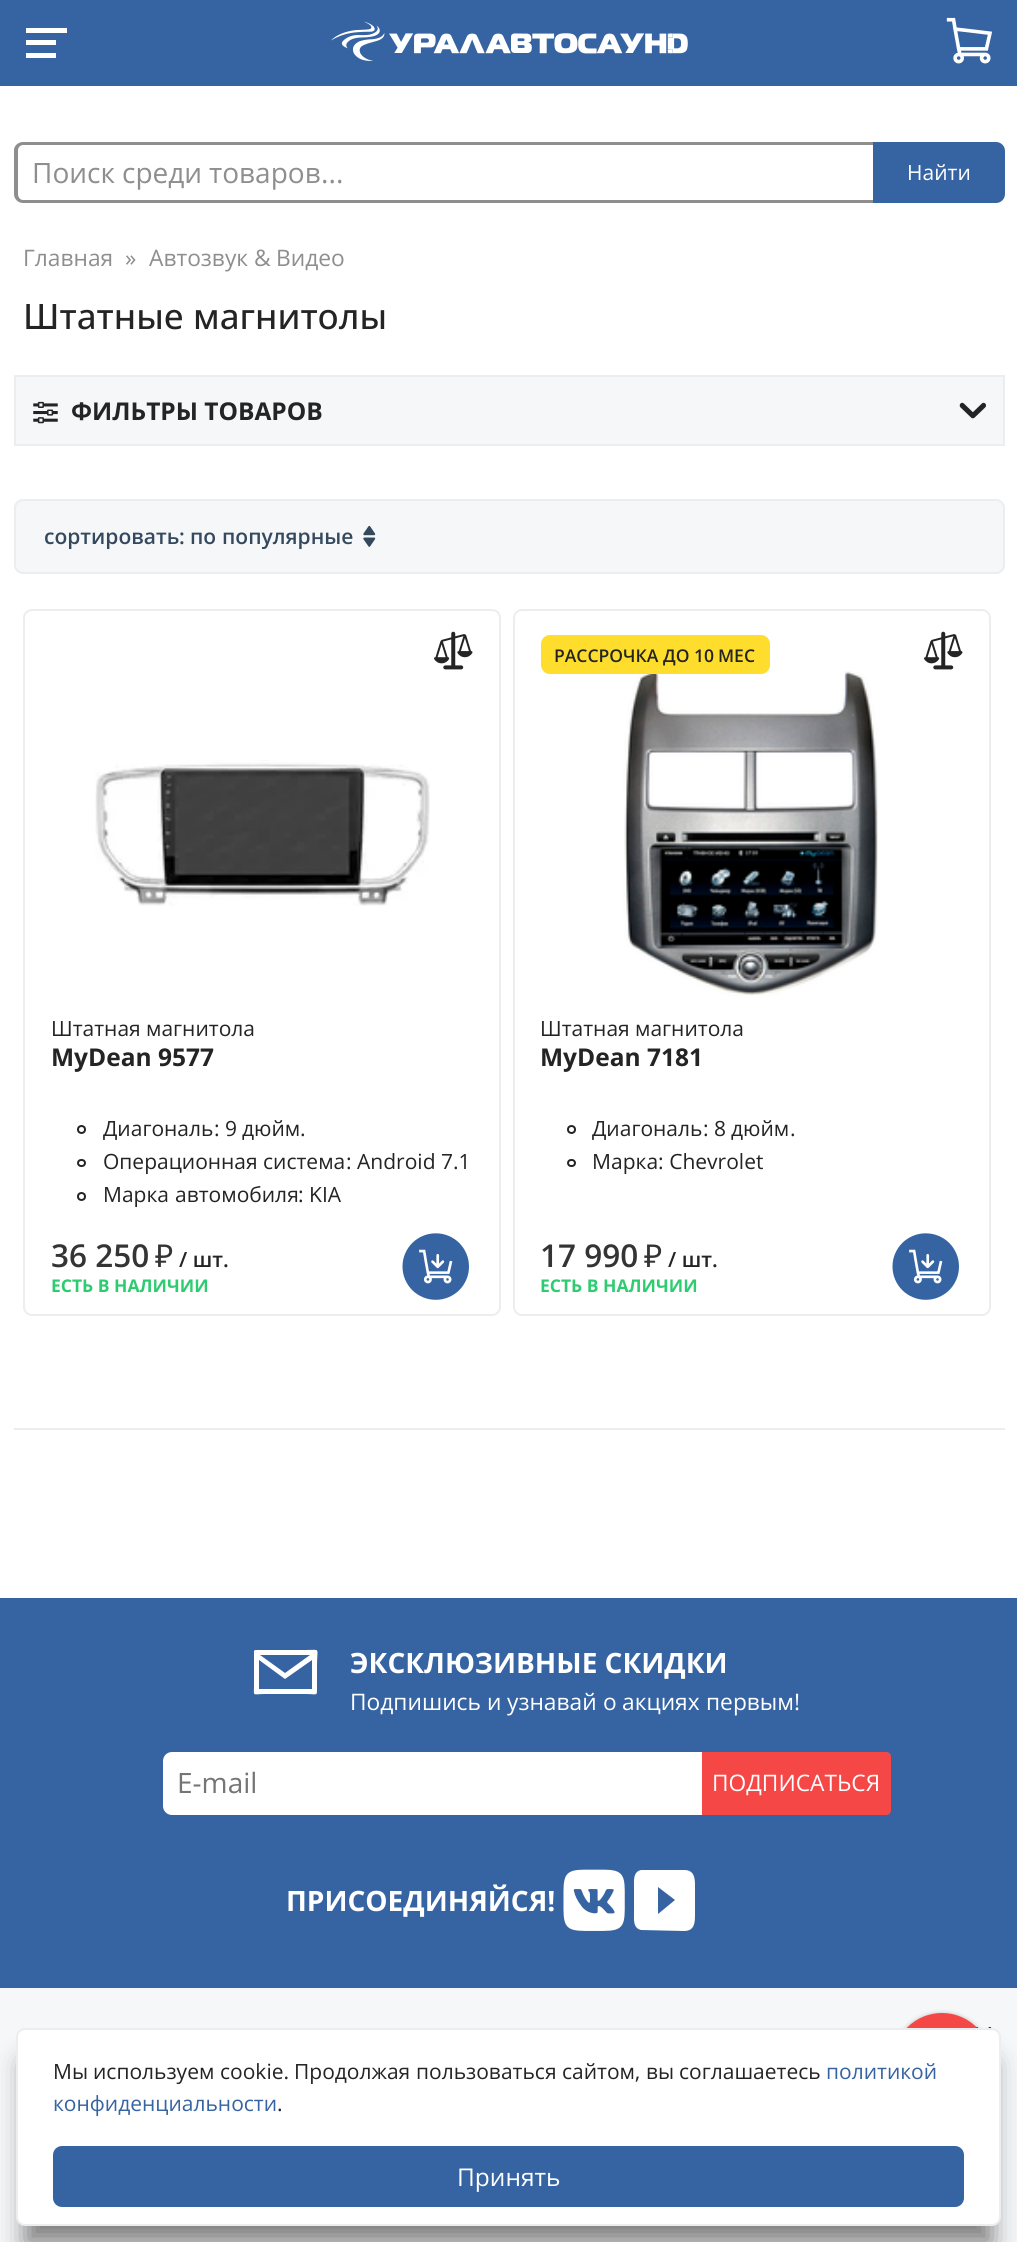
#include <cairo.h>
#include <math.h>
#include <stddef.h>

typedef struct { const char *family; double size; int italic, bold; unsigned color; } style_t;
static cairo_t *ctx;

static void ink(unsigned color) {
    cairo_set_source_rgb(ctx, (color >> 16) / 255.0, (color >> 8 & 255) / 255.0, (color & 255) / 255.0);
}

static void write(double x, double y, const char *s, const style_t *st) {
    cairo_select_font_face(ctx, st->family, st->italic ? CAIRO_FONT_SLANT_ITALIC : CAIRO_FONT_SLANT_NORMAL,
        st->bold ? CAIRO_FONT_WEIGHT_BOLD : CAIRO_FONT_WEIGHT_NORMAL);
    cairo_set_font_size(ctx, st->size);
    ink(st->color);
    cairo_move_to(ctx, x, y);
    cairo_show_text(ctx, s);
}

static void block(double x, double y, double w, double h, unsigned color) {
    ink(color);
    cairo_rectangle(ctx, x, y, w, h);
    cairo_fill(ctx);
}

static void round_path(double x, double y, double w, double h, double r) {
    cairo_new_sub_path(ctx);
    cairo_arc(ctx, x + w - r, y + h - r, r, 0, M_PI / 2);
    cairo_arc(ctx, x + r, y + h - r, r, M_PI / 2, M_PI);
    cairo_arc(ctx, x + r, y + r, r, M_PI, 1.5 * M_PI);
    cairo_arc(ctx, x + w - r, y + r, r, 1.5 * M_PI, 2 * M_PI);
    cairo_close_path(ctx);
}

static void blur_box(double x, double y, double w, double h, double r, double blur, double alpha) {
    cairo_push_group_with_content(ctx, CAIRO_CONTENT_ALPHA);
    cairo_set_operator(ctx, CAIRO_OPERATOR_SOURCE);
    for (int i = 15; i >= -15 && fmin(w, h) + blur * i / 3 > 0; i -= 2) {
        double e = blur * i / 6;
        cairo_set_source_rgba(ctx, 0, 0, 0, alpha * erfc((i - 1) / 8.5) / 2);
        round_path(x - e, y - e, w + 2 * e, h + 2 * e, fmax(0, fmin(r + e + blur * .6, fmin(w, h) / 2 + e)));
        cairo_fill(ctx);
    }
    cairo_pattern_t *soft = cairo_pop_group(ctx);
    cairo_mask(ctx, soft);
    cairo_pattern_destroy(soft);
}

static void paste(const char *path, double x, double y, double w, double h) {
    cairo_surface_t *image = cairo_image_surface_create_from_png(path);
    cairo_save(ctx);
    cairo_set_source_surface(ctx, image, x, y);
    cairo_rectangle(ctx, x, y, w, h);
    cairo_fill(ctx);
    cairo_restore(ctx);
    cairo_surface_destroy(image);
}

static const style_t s1 = {"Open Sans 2", 28, 0, 0, 0x8e8e8e};
static const style_t s2 = {"Open Sans", 28, 0, 0, 0x8e8e8e};
static const style_t s3 = {"Open Sans 2", 21, 0, 0, 0xffffff};
static const style_t s4 = {"Open Sans 2", 22.75, 0, 0, 0x8e8e8e};
static const style_t s5 = {"Open Sans", 22.75, 0, 0, 0x8e8e8e};
static const style_t s6 = {"Open Sans Medium", 35, 0, 0, 0x242424};
static const style_t s7 = {"Open Sans", 24.5, 0, 1, 0x242424};
static const style_t s8 = {"Open Sans SemiBold", 21, 0, 0, 0x34495e};
static const style_t s9 = {"Open Sans 2 SemiBold", 21, 0, 0, 0x34495e};
static const style_t s10 = {"Open Sans 2", 21, 0, 0, 0x242424};
static const style_t s11 = {"Open Sans", 21, 0, 0, 0x242424};
static const style_t s12 = {"Open Sans 2 SemiBold", 31.5, 0, 0, 0x343434};
static const style_t s13 = {"Noto Sans", 31.5, 0, 0, 0x343434};
static const style_t s14 = {"Open Sans 2 SemiBold", 21, 0, 0, 0x242424};
static const style_t s15 = {"Open Sans", 17.5, 0, 1, 0x2ecc71};
static const style_t s16 = {"Open Sans SemiBold", 17.5, 0, 0, 0x242424};
static const style_t s17 = {"Open Sans 2 SemiBold", 17.5, 0, 0, 0x242424};
static const style_t s18 = {"Open Sans", 28, 0, 1, 0xffffff};
static const style_t s19 = {"Open Sans 2", 22.75, 0, 0, 0xffffff};
static const style_t s20 = {"Open Sans", 22.75, 0, 0, 0xffffff};
static const style_t s21 = {"Open Sans", 28, 0, 0, 0x757575};
static const style_t s22 = {"Open Sans 2", 21, 0, 0, 0x3664a2};
static const style_t s23 = {"Open Sans 2", 24.5, 0, 0, 0xffffff};

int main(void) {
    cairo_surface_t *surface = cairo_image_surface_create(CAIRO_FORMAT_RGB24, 1017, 2242);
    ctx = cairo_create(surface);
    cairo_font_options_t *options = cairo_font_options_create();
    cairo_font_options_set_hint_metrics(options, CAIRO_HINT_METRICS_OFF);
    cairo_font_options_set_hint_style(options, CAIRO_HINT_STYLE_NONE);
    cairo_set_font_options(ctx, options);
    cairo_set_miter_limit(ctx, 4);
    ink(0xffffff);
    cairo_paint(ctx);
    block(0, 0, 1017, 86, 0x3664a2);
    block(26, 40, 30, 5, 0xffffff);
    block(26, 28, 41, 5, 0xffffff);
    block(26, 53, 30, 5, 0xffffff);
    paste("pic1.png", 331, 21, 357, 40);
    paste("pic2.png", 946, 17, 47, 47);
    ink(0x8e8e8e);
    cairo_set_fill_rule(ctx, CAIRO_FILL_RULE_EVEN_ODD);
    cairo_new_path(ctx);
    cairo_move_to(ctx, 23, 142);
    cairo_line_to(ctx, 940, 142);
    cairo_line_to(ctx, 940, 203);
    cairo_line_to(ctx, 23, 203);
    cairo_curve_to(ctx, 18, 203, 14, 199, 14, 194);
    cairo_line_to(ctx, 14, 150);
    cairo_curve_to(ctx, 14, 146, 18, 142, 23, 142);
    cairo_close_path(ctx);
    cairo_move_to(ctx, 23, 145);
    cairo_line_to(ctx, 940, 145);
    cairo_line_to(ctx, 940, 200);
    cairo_line_to(ctx, 23, 200);
    cairo_curve_to(ctx, 20, 200, 18, 197, 18, 194);
    cairo_line_to(ctx, 18, 150);
    cairo_curve_to(ctx, 18, 148, 20, 145, 23, 145);
    cairo_close_path(ctx);
    cairo_fill(ctx);
    write(32, 183, "Поиск", &s1);
    write(122, 183, "среди", &s1);
    write(209, 183, "товаров", &s1);
    write(321, 183, "...", &s2);
    ink(0x3664a2);
    cairo_new_path(ctx);
    cairo_move_to(ctx, 873, 142);
    cairo_line_to(ctx, 996, 142);
    cairo_curve_to(ctx, 1001, 142, 1005, 146, 1005, 151);
    cairo_line_to(ctx, 1005, 194);
    cairo_curve_to(ctx, 1005, 199, 1001, 203, 996, 203);
    cairo_line_to(ctx, 873, 203);
    cairo_close_path(ctx);
    cairo_fill(ctx);
    write(907, 180, "Найти", &s3);
    write(23, 266, "Главная", &s4);
    write(125, 266, "»", &s5);
    write(149, 266, "Автозвук", &s4);
    write(254, 266, "&", &s5);
    write(276, 266, "Видео", &s4);
    write(23, 329, "Штатные", &s6);
    write(193, 329, "магнитолы", &s6);
    ink(0xf6f7f8);
    cairo_rectangle(ctx, 15, 376, 989, 69);
    cairo_fill_preserve(ctx);
    ink(0xecedef);
    cairo_stroke(ctx);
    paste("pic3.png", 33, 401, 25, 23);
    write(71, 420, "ФИЛЬТРЫ ТОВАРОВ", &s7);
    paste("pic4.png", 959, 402, 27, 17);
    ink(0xf6f7f8);
    round_path(15, 500, 989, 73, 8);
    cairo_fill_preserve(ctx);
    ink(0xebedef);
    cairo_stroke(ctx);
    write(44, 544, "сортировать", &s8);
    write(179, 544, ":", &s9);
    write(190, 544, "по", &s8);
    write(222, 544, "популярные", &s8);
    paste("pic5.png", 363, 525, 13, 22);
    round_path(24, 610, 476, 705, 8);
    ink(0xecedef);
    cairo_stroke(ctx);
    paste("pic6.png", 434, 631, 39, 39);
    paste("pic7.png", 95, 760, 335, 146);
    write(51, 1036, "Штатная", &s10);
    write(146, 1036, "магнитола", &s10);
    write(51, 1066, "MyDean 9577", &s7);
    cairo_new_path(ctx);
    cairo_arc(ctx, 81.5, 1129.5, 3.5, 0, 2 * M_PI);
    cairo_stroke(ctx);
    write(103, 1136, "Диагональ", &s10);
    write(214, 1136, ": 9", &s11);
    write(242, 1136, "дюйм", &s10);
    write(300, 1136, ".", &s11);
    round_path(78, 1160, 7, 6, 3);
    cairo_stroke(ctx);
    write(103, 1169, "Операционная", &s10);
    write(263, 1169, "система", &s10);
    write(346, 1169, ": Android 7.1", &s11);
    cairo_new_path(ctx);
    cairo_arc(ctx, 81.5, 1196.5, 3.5, 0, 2 * M_PI);
    cairo_stroke(ctx);
    write(103, 1202, "Марка", &s10);
    write(175, 1202, "автомобиля", &s10);
    write(298, 1202, ": KIA", &s11);
    write(51, 1267, "36 250", &s12);
    write(155, 1267, "₽", &s13);
    write(179, 1267, "/ шт.", &s14);
    write(51, 1292, "ЕСТЬ В НАЛИЧИИ", &s15);
    paste("pic8.png", 402, 1233, 67, 67);
    round_path(514, 610, 476, 705, 8);
    ink(0xecedef);
    cairo_stroke(ctx);
    paste("pic9.png", 623, 671, 255, 325);
    ink(0xffdd2c);
    round_path(541, 635, 229, 39, 9);
    cairo_fill(ctx);
    write(554, 662, "РАССРОЧКА", &s16);
    write(663, 662, "ДО", &s16);
    write(694, 662, "10", &s17);
    write(718, 662, "МЕС", &s16);
    paste("pic6.png", 924, 631, 39, 39);
    write(540, 1036, "Штатная", &s10);
    write(635, 1036, "магнитола", &s10);
    write(540, 1066, "MyDean 7181", &s7);
    cairo_new_path(ctx);
    cairo_arc(ctx, 571.5, 1129.5, 3.5, 0, 2 * M_PI);
    cairo_stroke(ctx);
    write(592, 1136, "Диагональ", &s10);
    write(703, 1136, ": 8", &s11);
    write(731, 1136, "дюйм", &s10);
    write(790, 1136, ".", &s11);
    round_path(568, 1160, 7, 6, 3);
    cairo_stroke(ctx);
    write(592, 1169, "Марка: Chevrolet", &s11);
    write(540, 1267, "17 990", &s12);
    write(644, 1267, "₽", &s13);
    write(668, 1267, "/ шт.", &s14);
    write(540, 1292, "ЕСТЬ В НАЛИЧИИ", &s15);
    paste("pic8.png", 892, 1233, 67, 67);
    block(14, 1428, 991, 2, 0xecedef);
    block(0, 1598, 1017, 390, 0x3664a2);
    ink(0xffffff);
    cairo_set_fill_rule(ctx, CAIRO_FILL_RULE_WINDING);
    cairo_new_path(ctx);
    cairo_move_to(ctx, 255, 1650);
    cairo_line_to(ctx, 254, 1651);
    cairo_line_to(ctx, 254, 1686);
    cairo_curve_to(ctx, 254, 1697, 252, 1694, 265, 1694);
    cairo_line_to(ctx, 306, 1694);
    cairo_curve_to(ctx, 318, 1694, 317, 1697, 317, 1686);
    cairo_line_to(ctx, 317, 1665);
    cairo_curve_to(ctx, 317, 1647, 321, 1650, 306, 1650);
    cairo_close_path(ctx);
    cairo_move_to(ctx, 310, 1655);
    cairo_line_to(ctx, 285, 1673);
    cairo_line_to(ctx, 260, 1655);
    cairo_close_path(ctx);
    cairo_move_to(ctx, 312, 1689);
    cairo_line_to(ctx, 259, 1689);
    cairo_line_to(ctx, 259, 1660);
    cairo_line_to(ctx, 285, 1679);
    cairo_line_to(ctx, 312, 1660);
    cairo_close_path(ctx);
    cairo_fill(ctx);
    write(350, 1673, "ЭКСКЛЮЗИВНЫЕ СКИДКИ", &s18);
    write(350, 1710, "Подпишись", &s19);
    write(487, 1710, "и", &s19);
    write(507, 1710, "узнавай", &s19);
    write(603, 1710, "о", &s19);
    write(622, 1710, "акциях", &s19);
    write(706, 1710, "первым", &s19);
    write(794, 1710, "!", &s20);
    cairo_new_path(ctx);
    cairo_move_to(ctx, 172, 1752);
    cairo_line_to(ctx, 702, 1752);
    cairo_line_to(ctx, 702, 1815);
    cairo_line_to(ctx, 172, 1815);
    cairo_curve_to(ctx, 167, 1815, 163, 1811, 163, 1806);
    cairo_line_to(ctx, 163, 1761);
    cairo_curve_to(ctx, 163, 1756, 167, 1752, 172, 1752);
    cairo_close_path(ctx);
    cairo_fill(ctx);
    write(177, 1793, "E-mail", &s21);
    ink(0xf64747);
    cairo_new_path(ctx);
    cairo_move_to(ctx, 702, 1752);
    cairo_line_to(ctx, 886, 1752);
    cairo_curve_to(ctx, 889, 1752, 891, 1754, 891, 1757);
    cairo_line_to(ctx, 891, 1810);
    cairo_curve_to(ctx, 891, 1813, 889, 1815, 886, 1815);
    cairo_line_to(ctx, 702, 1815);
    cairo_close_path(ctx);
    cairo_fill(ctx);
    write(712, 1791, "ПОДПИСАТЬСЯ", &s19);
    write(286, 1911, "ПРИСОЕДИНЯЙСЯ!", &s18);
    paste("pic10.png", 563, 1869, 62, 62);
    cairo_new_path(ctx);
    cairo_move_to(ctx, 684, 1870);
    cairo_line_to(ctx, 641, 1870);
    cairo_curve_to(ctx, 633, 1872, 634, 1880, 634, 1887);
    cairo_line_to(ctx, 634, 1914);
    cairo_curve_to(ctx, 634, 1920, 633, 1928, 641, 1930);
    cairo_line_to(ctx, 684, 1931);
    cairo_curve_to(ctx, 695, 1931, 695, 1922, 695, 1914);
    cairo_line_to(ctx, 695, 1887);
    cairo_curve_to(ctx, 695, 1879, 695, 1870, 684, 1870);
    cairo_close_path(ctx);
    cairo_move_to(ctx, 658, 1914);
    cairo_line_to(ctx, 658, 1887);
    cairo_line_to(ctx, 675, 1900);
    cairo_close_path(ctx);
    cairo_fill(ctx);
    block(0, 1988, 1017, 254, 0xf6f7f8);
    paste("pic11.png", 976, 2027, 16, 1);
    ink(0x000000);
    blur_box(893, 2014, 98, 98, 49, 2.5, 0.33);
    ink(0xf64747);
    cairo_arc(ctx, 942, 2062, 49, 0, 2 * M_PI);
    cairo_fill(ctx);
    ink(0x7e7e7e);
    blur_box(25, 2063, 967, 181, 0, 13, 1);
    ink(0xffffff);
    round_path(17, 2029, 983, 196, 8);
    cairo_fill_preserve(ctx);
    ink(0xecedef);
    cairo_stroke(ctx);
    write(53, 2079, "Мы", &s10);
    write(93, 2079, "используем", &s10);
    write(220, 2079, "cookie.", &s11);
    write(294, 2079, "Продолжая", &s10);
    write(416, 2079, "пользоваться", &s10);
    write(562, 2079, "сайтом", &s10);
    write(635, 2079, ",", &s11);
    write(646, 2079, "вы", &s10);
    write(679, 2079, "соглашаетесь", &s10);
    write(826, 2079, "политикой", &s22);
    write(53, 2111, "конфиденциальности", &s22);
    write(277, 2111, ".", &s11);
    ink(0x3664a2);
    round_path(53, 2146, 911, 61, 9);
    cairo_fill(ctx);
    write(457, 2186, "Принять", &s23);
    cairo_surface_write_to_png(surface, "screenshot.png");
    cairo_font_options_destroy(options);
    cairo_destroy(ctx);
    cairo_surface_destroy(surface);
    return 0;
}
